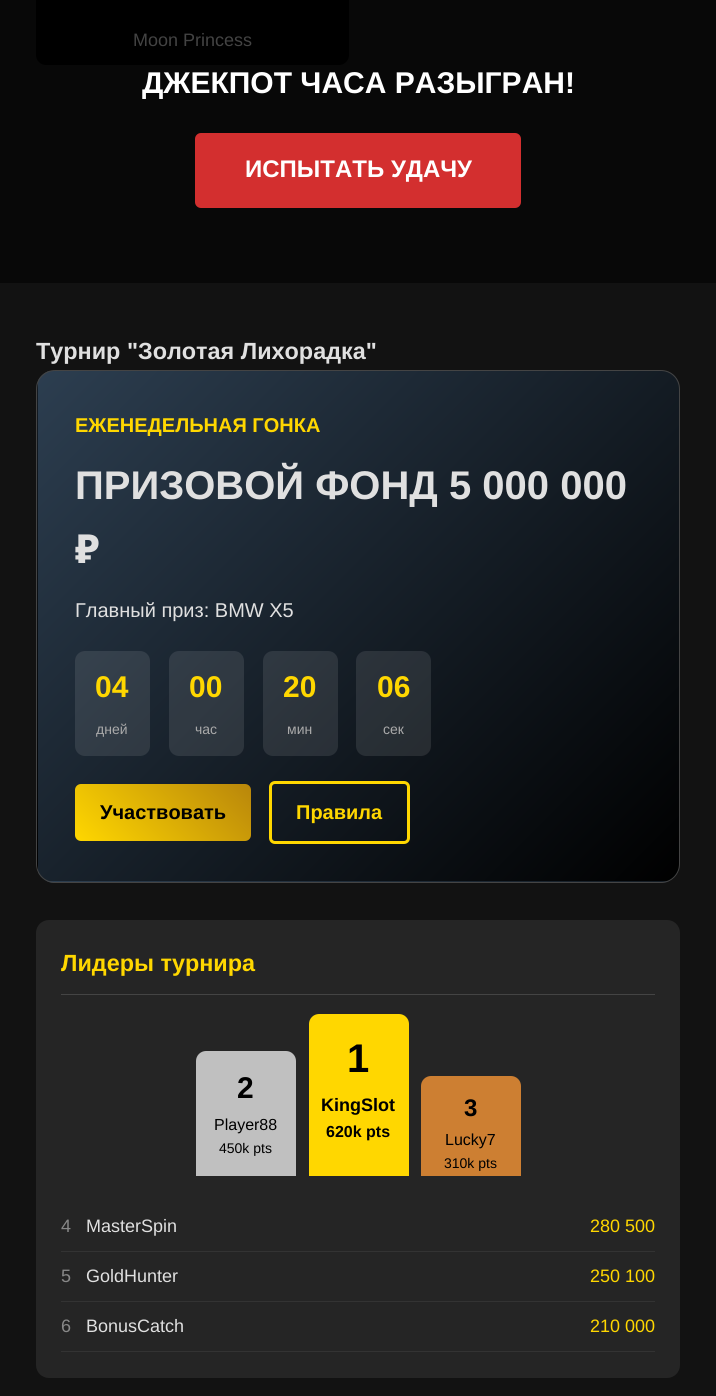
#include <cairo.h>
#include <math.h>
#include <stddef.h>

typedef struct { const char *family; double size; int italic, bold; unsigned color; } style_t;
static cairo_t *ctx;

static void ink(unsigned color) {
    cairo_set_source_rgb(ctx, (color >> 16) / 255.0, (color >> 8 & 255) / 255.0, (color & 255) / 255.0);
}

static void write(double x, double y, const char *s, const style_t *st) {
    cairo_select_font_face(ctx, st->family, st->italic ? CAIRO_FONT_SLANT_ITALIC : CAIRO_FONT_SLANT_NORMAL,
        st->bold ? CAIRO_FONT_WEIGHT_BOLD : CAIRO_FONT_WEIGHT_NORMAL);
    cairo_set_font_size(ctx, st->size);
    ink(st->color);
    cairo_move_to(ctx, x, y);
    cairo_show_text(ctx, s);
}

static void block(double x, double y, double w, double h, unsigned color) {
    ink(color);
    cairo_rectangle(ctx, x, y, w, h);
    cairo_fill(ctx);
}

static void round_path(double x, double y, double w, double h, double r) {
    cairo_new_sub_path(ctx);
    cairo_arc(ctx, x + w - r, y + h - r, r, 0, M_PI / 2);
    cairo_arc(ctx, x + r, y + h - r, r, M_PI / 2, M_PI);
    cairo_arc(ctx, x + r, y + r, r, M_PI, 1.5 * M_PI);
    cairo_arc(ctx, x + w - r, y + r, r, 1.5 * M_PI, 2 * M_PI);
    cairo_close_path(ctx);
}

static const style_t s1 = {"Liberation Sans", 18, 0, 0, 0x434343};
static const style_t s2 = {"Liberation Sans", 30, 0, 1, 0xffffff};
static const style_t s3 = {"Liberation Sans", 24, 0, 1, 0xffffff};
static const style_t s4 = {"Liberation Sans", 23.4, 0, 1, 0xe0e0e0};
static const style_t s5 = {"Liberation Sans", 20, 0, 1, 0xffd700};
static const style_t s6 = {"Liberation Sans", 40, 0, 1, 0xe0e0e0};
static const style_t s7 = {"Noto Sans ExtraBold", 40, 0, 0, 0xe0e0e0};
static const style_t s8 = {"Liberation Sans", 20, 0, 0, 0xe0e0e0};
static const style_t s9 = {"Liberation Sans", 30, 0, 1, 0xffd700};
static const style_t s10 = {"Liberation Sans", 14, 0, 0, 0xaaaaaa};
static const style_t s11 = {"Liberation Sans", 20, 0, 1, 0x000000};
static const style_t s12 = {"Liberation Sans", 23.4, 0, 1, 0xffd700};
static const style_t s13 = {"Liberation Sans", 30, 0, 1, 0x000000};
static const style_t s14 = {"Liberation Sans", 16, 0, 0, 0x000000};
static const style_t s15 = {"Liberation Sans", 14, 0, 0, 0x000000};
static const style_t s16 = {"Liberation Sans", 40, 0, 1, 0x000000};
static const style_t s17 = {"Liberation Sans", 18, 0, 1, 0x000000};
static const style_t s18 = {"Liberation Sans", 16, 0, 1, 0x000000};
static const style_t s19 = {"Liberation Sans", 24, 0, 1, 0x000000};
static const style_t s20 = {"Liberation Sans", 18, 0, 0, 0x888888};
static const style_t s21 = {"Liberation Sans", 18, 0, 0, 0xe0e0e0};
static const style_t s22 = {"Liberation Sans", 18, 0, 0, 0xffd700};

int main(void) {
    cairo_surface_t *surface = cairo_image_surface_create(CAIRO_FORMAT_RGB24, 716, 1396);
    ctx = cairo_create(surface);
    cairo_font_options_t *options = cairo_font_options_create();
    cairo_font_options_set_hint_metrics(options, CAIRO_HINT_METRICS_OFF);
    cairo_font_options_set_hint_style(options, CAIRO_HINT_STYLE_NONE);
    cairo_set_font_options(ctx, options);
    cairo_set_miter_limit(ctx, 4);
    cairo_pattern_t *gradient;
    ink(0x080808);
    cairo_paint(ctx);
    ink(0x000000);
    round_path(36, -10, 313, 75, 10);
    cairo_fill(ctx);
    write(133, 46, "Moon Princess", &s1);
    write(142, 93, "ДЖЕКПОТ ЧАСА РАЗЫГРАН!", &s2);
    ink(0xd32f2f);
    round_path(195, 133, 326, 75, 6);
    cairo_fill(ctx);
    write(245, 177, "ИСПЫТАТЬ УДАЧУ", &s3);
    block(0, 283, 716, 1113, 0x121212);
    write(36, 359, "Турнир \"Золотая Лихорадка\"", &s4);
    cairo_save(ctx);
    round_path(36, 370, 644, 513, 19);
    cairo_clip(ctx);
    gradient = cairo_pattern_create_linear(-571, 338, 4.7, 914);
    cairo_pattern_add_color_stop_rgba(gradient, 0, 0.173, 0.243, 0.314, 1);
    cairo_pattern_add_color_stop_rgba(gradient, 1, 0, 0, 0, 1);
    cairo_set_source(ctx, gradient);
    cairo_pattern_destroy(gradient);
    cairo_rectangle(ctx, 36, 380, 2, 501);
    cairo_fill(ctx);
    gradient = cairo_pattern_create_linear(70, 338, 646, 914);
    cairo_pattern_add_color_stop_rgba(gradient, 0, 0.173, 0.243, 0.314, 1);
    cairo_pattern_add_color_stop_rgba(gradient, 1, 0, 0, 0, 1);
    cairo_set_source(ctx, gradient);
    cairo_pattern_destroy(gradient);
    cairo_rectangle(ctx, 38, 371, 641, 510);
    cairo_fill(ctx);
    gradient = cairo_pattern_create_linear(70, 848, 646, 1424);
    cairo_pattern_add_color_stop_rgba(gradient, 0, 0.173, 0.243, 0.314, 1);
    cairo_pattern_add_color_stop_rgba(gradient, 1, 0, 0, 0, 1);
    cairo_set_source(ctx, gradient);
    cairo_pattern_destroy(gradient);
    cairo_rectangle(ctx, 38, 881, 632, 2);
    cairo_fill(ctx);
    cairo_restore(ctx);
    round_path(36.5, 370.5, 643, 512, 18.5);
    ink(0x444444);
    cairo_set_line_width(ctx, 1);
    cairo_stroke(ctx);
    write(75, 432, "ЕЖЕНЕДЕЛЬНАЯ ГОНКА", &s5);
    write(75, 499, "ПРИЗОВОЙ ФОНД 5 000 000", &s6);
    write(75, 563, "₽", &s7);
    write(75, 617, "Главный приз: BMW X5", &s8);
    cairo_set_source_rgba(ctx, 1, 1, 1, 0.1);
    round_path(75, 651, 75, 105, 10);
    cairo_fill(ctx);
    write(95, 697, "04", &s9);
    write(96, 734, "дней", &s10);
    cairo_set_source_rgba(ctx, 1, 1, 1, 0.1);
    round_path(169, 651, 75, 105, 10);
    cairo_fill(ctx);
    write(189, 697, "00", &s9);
    write(195, 734, "час", &s10);
    cairo_set_source_rgba(ctx, 1, 1, 1, 0.1);
    round_path(263, 651, 75, 105, 10);
    cairo_fill(ctx);
    write(283, 697, "20", &s9);
    write(287, 734, "мин", &s10);
    cairo_set_source_rgba(ctx, 1, 1, 1, 0.1);
    round_path(356, 651, 75, 105, 10);
    cairo_fill(ctx);
    write(377, 697, "06", &s9);
    write(383, 734, "сек", &s10);
    gradient = cairo_pattern_create_linear(105, 871, 222, 754);
    cairo_pattern_add_color_stop_rgba(gradient, 0, 1, 0.843, 0, 1);
    cairo_pattern_add_color_stop_rgba(gradient, 1, 0.722, 0.525, 0.043, 1);
    cairo_set_source(ctx, gradient);
    cairo_pattern_destroy(gradient);
    round_path(75, 784, 176, 57, 6);
    cairo_fill(ctx);
    write(100, 819, "Участвовать", &s11);
    round_path(270.5, 782.5, 138, 60, 4.5);
    ink(0xffd700);
    cairo_set_line_width(ctx, 3);
    cairo_stroke(ctx);
    write(296, 819, "Правила", &s5);
    ink(0x252525);
    round_path(36, 920, 644, 458, 13);
    cairo_fill(ctx);
    block(61, 994, 594, 1, 0x444444);
    write(61, 971, "Лидеры турнира", &s12);
    ink(0xc0c0c0);
    cairo_new_path(ctx);
    cairo_move_to(ctx, 206, 1051);
    cairo_line_to(ctx, 286, 1051);
    cairo_curve_to(ctx, 291.5, 1051, 296, 1055.5, 296, 1061);
    cairo_line_to(ctx, 296, 1176);
    cairo_line_to(ctx, 196, 1176);
    cairo_line_to(ctx, 196, 1061);
    cairo_curve_to(ctx, 196, 1055.5, 200.5, 1051, 206, 1051);
    cairo_close_path(ctx);
    cairo_fill(ctx);
    write(237, 1098, "2", &s13);
    write(214, 1130, "Player88", &s14);
    write(219, 1153, "450k pts", &s15);
    ink(0xffd700);
    cairo_new_path(ctx);
    cairo_move_to(ctx, 319, 1014);
    cairo_line_to(ctx, 399, 1014);
    cairo_curve_to(ctx, 404.5, 1014, 409, 1018.5, 409, 1024);
    cairo_line_to(ctx, 409, 1176);
    cairo_line_to(ctx, 309, 1176);
    cairo_line_to(ctx, 309, 1024);
    cairo_curve_to(ctx, 309, 1018.5, 313.5, 1014, 319, 1014);
    cairo_close_path(ctx);
    cairo_fill(ctx);
    write(347, 1072, "1", &s16);
    write(321, 1111, "KingSlot", &s17);
    write(326, 1137, "620k pts", &s18);
    ink(0xcd7f32);
    cairo_new_path(ctx);
    cairo_move_to(ctx, 431, 1076);
    cairo_line_to(ctx, 511, 1076);
    cairo_curve_to(ctx, 516.5, 1076, 521, 1080.5, 521, 1086);
    cairo_line_to(ctx, 521, 1176);
    cairo_line_to(ctx, 421, 1176);
    cairo_line_to(ctx, 421, 1086);
    cairo_curve_to(ctx, 421, 1080.5, 425.5, 1076, 431, 1076);
    cairo_close_path(ctx);
    cairo_fill(ctx);
    write(464, 1116, "3", &s19);
    write(445, 1145, "Lucky7", &s14);
    write(444, 1168, "310k pts", &s15);
    block(61, 1251, 594, 1, 0x333333);
    write(61, 1232, "4", &s20);
    write(86, 1232, "MasterSpin", &s21);
    write(590, 1232, "280 500", &s22);
    block(61, 1301, 594, 1, 0x333333);
    write(61, 1282, "5", &s20);
    write(86, 1282, "GoldHunter", &s21);
    write(590, 1282, "250 100", &s22);
    block(61, 1351, 594, 1, 0x333333);
    write(61, 1332, "6", &s20);
    write(86, 1332, "BonusCatch", &s21);
    write(590, 1332, "210 000", &s22);
    cairo_surface_write_to_png(surface, "screenshot.png");
    cairo_font_options_destroy(options);
    cairo_destroy(ctx);
    cairo_surface_destroy(surface);
    return 0;
}
